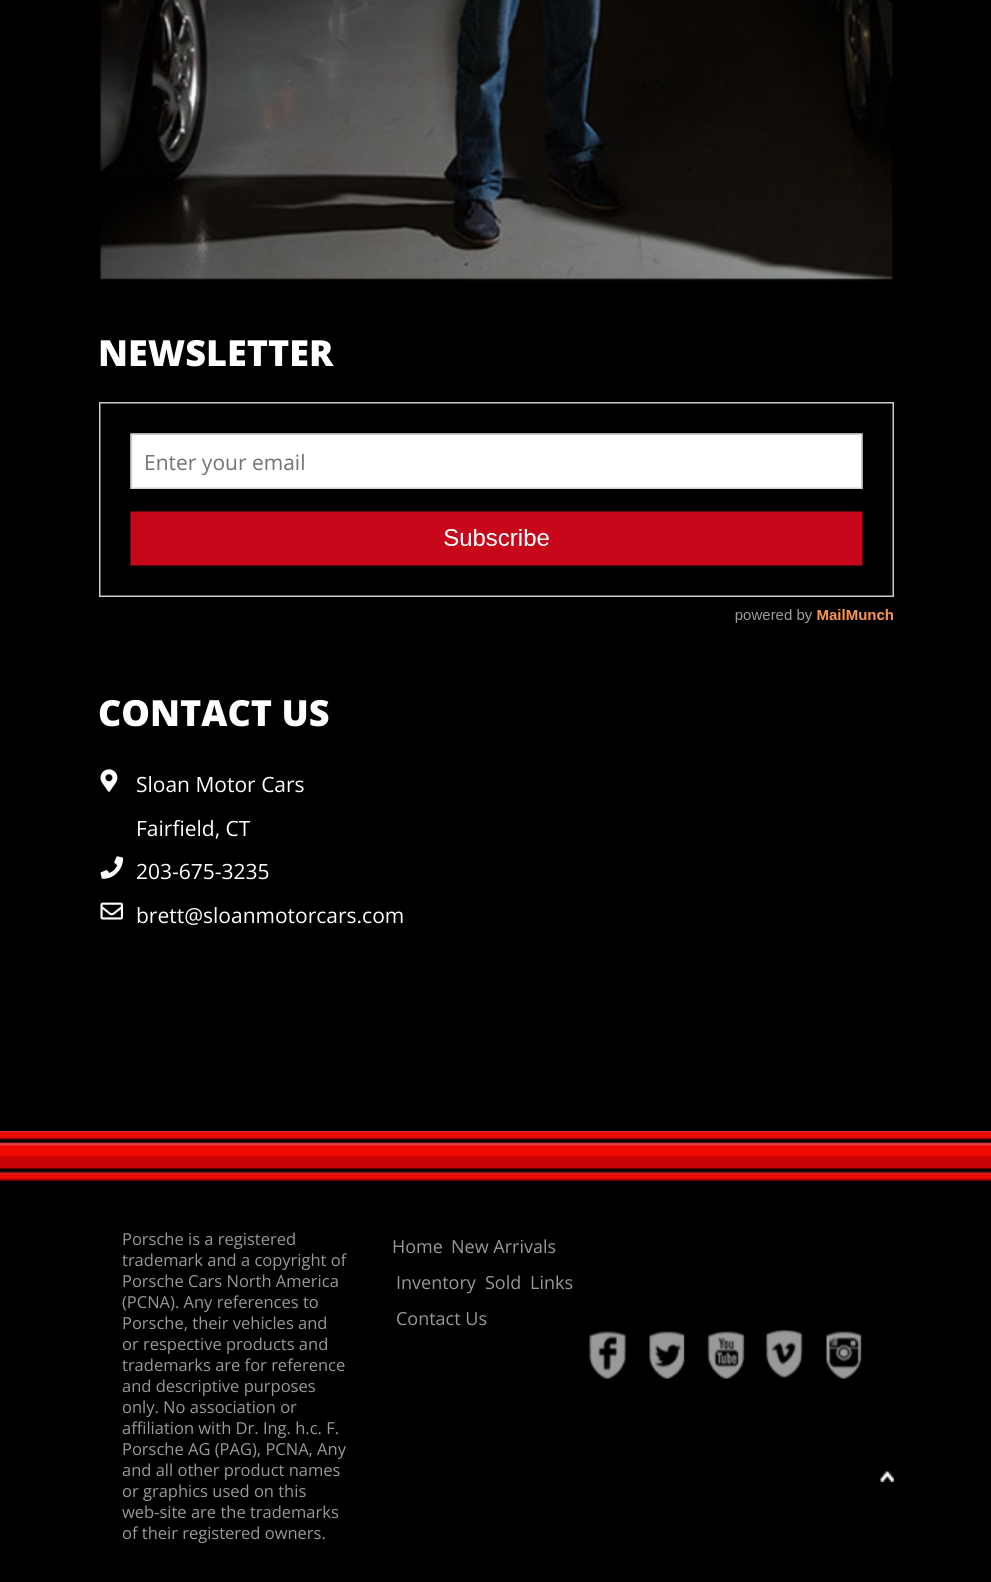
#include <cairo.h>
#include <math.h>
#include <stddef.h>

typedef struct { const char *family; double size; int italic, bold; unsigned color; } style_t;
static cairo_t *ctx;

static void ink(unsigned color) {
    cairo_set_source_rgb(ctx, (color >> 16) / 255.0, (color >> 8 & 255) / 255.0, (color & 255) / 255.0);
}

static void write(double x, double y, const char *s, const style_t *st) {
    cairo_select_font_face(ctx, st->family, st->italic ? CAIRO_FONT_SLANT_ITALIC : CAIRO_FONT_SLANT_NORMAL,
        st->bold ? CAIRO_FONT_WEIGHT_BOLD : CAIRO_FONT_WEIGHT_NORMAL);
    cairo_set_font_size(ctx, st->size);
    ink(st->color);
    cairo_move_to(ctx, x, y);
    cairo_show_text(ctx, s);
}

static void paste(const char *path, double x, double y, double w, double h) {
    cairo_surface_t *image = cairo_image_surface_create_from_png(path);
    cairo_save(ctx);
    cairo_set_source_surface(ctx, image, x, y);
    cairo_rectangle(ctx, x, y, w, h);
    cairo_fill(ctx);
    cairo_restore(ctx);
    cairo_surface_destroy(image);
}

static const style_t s1 = {"Open Sans ExtraBold", 36, 0, 0, 0xffffff};
static const style_t s2 = {"Open Sans", 21, 0, 0, 0xffffff};
static const style_t s3 = {"Open Sans", 16.5, 0, 0, 0x999999};
static const style_t s4 = {"Open Sans", 18, 0, 0, 0x999999};

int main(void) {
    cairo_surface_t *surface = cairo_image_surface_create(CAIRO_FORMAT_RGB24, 991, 1582);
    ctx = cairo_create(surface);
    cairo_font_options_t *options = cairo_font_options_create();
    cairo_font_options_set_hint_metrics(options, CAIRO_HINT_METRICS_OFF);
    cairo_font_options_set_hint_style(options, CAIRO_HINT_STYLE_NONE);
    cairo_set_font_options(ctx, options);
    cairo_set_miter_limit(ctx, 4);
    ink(0x000000);
    cairo_paint(ctx);
    paste("pic1.png", 100, 0, 793, 281);
    write(98, 366, "NEWSLETTER", &s1);
    paste("pic2.png", 99, 402, 795, 221);
    write(98, 726, "CONTACT US", &s1);
    paste("pic3.png", 100, 769, 18, 23);
    write(136, 792, "Sloan Motor Cars", &s2);
    write(136, 836, "Fairfield, CT", &s2);
    paste("pic4.png", 100, 856, 23, 23);
    write(136, 879, "203-675-3235", &s2);
    paste("pic5.png", 100, 902, 23, 18);
    write(136, 923, "brett@sloanmotorcars.com", &s2);
    paste("pic6.png", 0, 1131, 991, 50);
    write(122, 1245, "Porsche is a registered", &s3);
    write(122, 1266, "trademark and a copyright of", &s3);
    write(122, 1287, "Porsche Cars North America", &s3);
    write(122, 1308, "(PCNA). Any references to", &s3);
    write(122, 1329, "Porsche, their vehicles and", &s3);
    write(122, 1350, "or respective products and", &s3);
    write(122, 1371, "trademarks are for reference", &s3);
    write(122, 1392, "and descriptive purposes", &s3);
    write(122, 1413, "only. No association or", &s3);
    write(122, 1434, "affiliation with Dr. Ing. h.c. F.", &s3);
    write(122, 1455, "Porsche AG (PAG), PCNA, Any", &s3);
    write(122, 1476, "and all other product names", &s3);
    write(122, 1497, "or graphics used on this", &s3);
    write(122, 1518, "web-site are the trademarks", &s3);
    write(122, 1539, "of their registered owners.", &s3);
    write(392, 1253, "Home", &s4);
    write(451, 1253, "New Arrivals", &s4);
    write(396, 1289, "Inventory", &s4);
    write(485, 1289, "Sold", &s4);
    write(530, 1289, "Links", &s4);
    write(396, 1325, "Contact Us", &s4);
    paste("pic7.png", 589, 1331, 37, 48);
    paste("pic8.png", 649, 1331, 36, 48);
    paste("pic9.png", 707, 1331, 38, 48);
    paste("pic10.png", 766, 1330, 37, 48);
    paste("pic11.png", 826, 1331, 36, 48);
    paste("pic12.png", 880, 1471, 14, 11);
    cairo_surface_write_to_png(surface, "screenshot.png");
    cairo_font_options_destroy(options);
    cairo_destroy(ctx);
    cairo_surface_destroy(surface);
    return 0;
}
